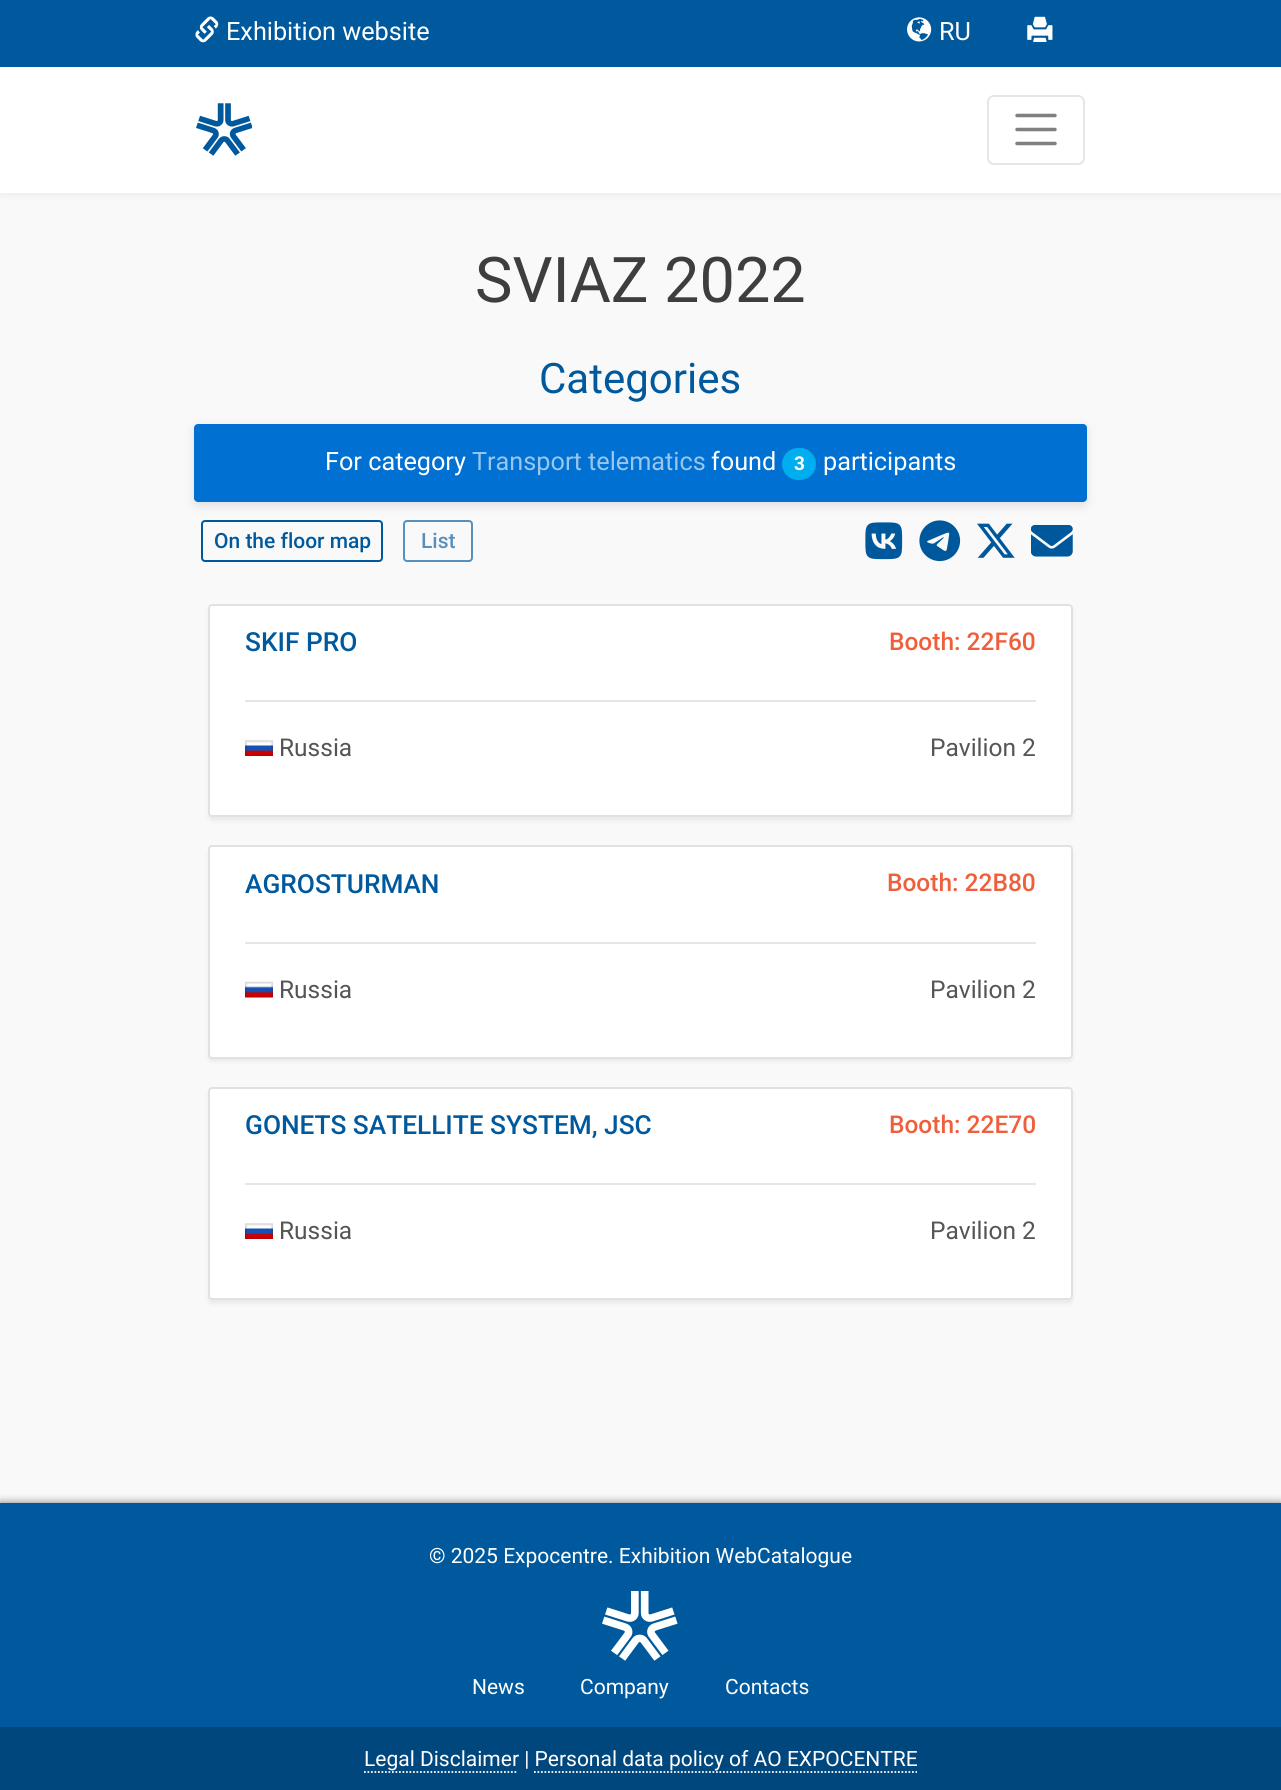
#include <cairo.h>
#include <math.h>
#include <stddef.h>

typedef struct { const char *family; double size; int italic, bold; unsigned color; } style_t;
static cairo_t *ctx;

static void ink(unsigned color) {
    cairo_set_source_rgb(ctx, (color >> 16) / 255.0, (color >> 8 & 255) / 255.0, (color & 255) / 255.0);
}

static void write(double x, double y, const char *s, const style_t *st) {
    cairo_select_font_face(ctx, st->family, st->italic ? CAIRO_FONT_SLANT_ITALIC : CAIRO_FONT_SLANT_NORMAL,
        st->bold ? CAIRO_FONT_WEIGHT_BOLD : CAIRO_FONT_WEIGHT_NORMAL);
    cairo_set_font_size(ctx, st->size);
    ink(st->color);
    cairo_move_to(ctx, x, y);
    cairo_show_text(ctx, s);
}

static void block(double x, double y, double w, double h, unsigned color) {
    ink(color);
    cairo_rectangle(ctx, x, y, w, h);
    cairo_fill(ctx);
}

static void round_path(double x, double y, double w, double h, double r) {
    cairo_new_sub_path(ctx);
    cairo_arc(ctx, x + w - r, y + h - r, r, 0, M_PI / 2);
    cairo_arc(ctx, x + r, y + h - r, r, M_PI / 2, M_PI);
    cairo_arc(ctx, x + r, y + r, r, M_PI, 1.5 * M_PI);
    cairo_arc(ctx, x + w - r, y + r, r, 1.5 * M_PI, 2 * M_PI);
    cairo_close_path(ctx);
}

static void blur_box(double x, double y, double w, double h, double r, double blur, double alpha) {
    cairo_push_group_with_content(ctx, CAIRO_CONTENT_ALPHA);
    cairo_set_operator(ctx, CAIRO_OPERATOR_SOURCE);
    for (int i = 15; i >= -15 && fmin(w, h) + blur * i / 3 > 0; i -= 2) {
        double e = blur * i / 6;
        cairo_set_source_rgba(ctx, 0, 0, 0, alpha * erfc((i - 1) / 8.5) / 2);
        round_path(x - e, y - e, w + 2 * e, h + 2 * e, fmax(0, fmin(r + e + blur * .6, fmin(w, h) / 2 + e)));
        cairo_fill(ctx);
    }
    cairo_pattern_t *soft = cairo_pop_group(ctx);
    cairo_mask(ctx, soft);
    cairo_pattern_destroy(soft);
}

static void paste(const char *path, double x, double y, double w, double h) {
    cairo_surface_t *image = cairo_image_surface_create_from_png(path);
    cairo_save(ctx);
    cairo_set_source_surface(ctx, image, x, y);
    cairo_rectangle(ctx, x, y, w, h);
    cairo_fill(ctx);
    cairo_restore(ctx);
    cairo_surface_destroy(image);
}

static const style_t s1 = {"Roboto", 25.25, 0, 0, 0xffffff};
static const style_t s2 = {"Roboto", 63, 0, 0, 0x3e3e3e};
static const style_t s3 = {"Roboto", 42, 0, 0, 0x00599d};
static const style_t s4 = {"Roboto", 25.25, 0, 0, 0x99c6ed};
static const style_t s5 = {"Roboto", 19, 0, 1, 0xffffff};
static const style_t s6 = {"Roboto Medium", 21, 0, 0, 0x00599d};
static const style_t s7 = {"Roboto Medium", 21, 0, 0, 0x5790bd};
static const style_t s8 = {"Roboto Medium", 26.25, 0, 0, 0x00599d};
static const style_t s9 = {"Roboto Medium", 24.5, 0, 0, 0xf05f3b};
static const style_t s10 = {"Roboto", 24.5, 0, 0, 0x555555};
static const style_t s11 = {"Roboto", 21, 0, 0, 0xffffff};

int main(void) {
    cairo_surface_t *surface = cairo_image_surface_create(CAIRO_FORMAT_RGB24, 1281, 1790);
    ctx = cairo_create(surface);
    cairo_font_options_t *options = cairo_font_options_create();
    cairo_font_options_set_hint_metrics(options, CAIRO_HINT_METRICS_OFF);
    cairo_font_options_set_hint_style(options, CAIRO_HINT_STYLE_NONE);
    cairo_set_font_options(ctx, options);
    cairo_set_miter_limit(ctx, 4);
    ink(0xf9f9f9);
    cairo_paint(ctx);
    ink(0x000000);
    blur_box(0, 2, 1281, 192, 0, 4.5, 0.07);
    block(0, 67, 1281, 126, 0xffffff);
    block(0, 0, 1281, 67, 0x00599d);
    paste("pic1.png", 195, 16, 24, 27);
    write(226, 40, "Exhibition website", &s1);
    paste("pic2.png", 907, 17, 25, 25);
    write(939, 40, "RU", &s1);
    paste("pic3.png", 1027, 16, 26, 26);
    paste("pic4.png", 196, 103, 56, 53);
    round_path(988, 96, 96, 68, 6);
    ink(0xe6e6e6);
    cairo_stroke(ctx);
    cairo_new_path(ctx);
    cairo_move_to(ctx, 1017, 115.5);
    cairo_line_to(ctx, 1055, 115.5);
    cairo_move_to(ctx, 1017, 129.5);
    cairo_line_to(ctx, 1055, 129.5);
    cairo_move_to(ctx, 1017, 143.5);
    cairo_line_to(ctx, 1055, 143.5);
    ink(0x808080);
    cairo_set_line_width(ctx, 3.5);
    cairo_set_line_cap(ctx, CAIRO_LINE_CAP_ROUND);
    cairo_stroke(ctx);
    write(475, 302, "SVIAZ 2022", &s2);
    write(539, 393, "Categories", &s3);
    ink(0x000000);
    blur_box(194, 427, 893, 79, 4, 5, 0.1);
    ink(0x0070d2);
    round_path(194, 424, 893, 78, 4);
    cairo_fill(ctx);
    write(325, 470, "For category", &s1);
    write(472, 470, "Transport telematics", &s4);
    write(711, 470, "found", &s1);
    ink(0x00adee);
    round_path(782, 448, 34, 32, 16);
    cairo_fill(ctx);
    write(794, 470, "3", &s5);
    write(823, 470, "participants", &s1);
    round_path(202, 521, 180, 40, 3);
    ink(0x00589c);
    cairo_set_line_width(ctx, 2);
    cairo_set_line_cap(ctx, CAIRO_LINE_CAP_BUTT);
    cairo_stroke(ctx);
    write(214, 548, "On the floor map", &s6);
    round_path(404, 521, 68, 40, 3);
    ink(0x5790bd);
    cairo_stroke(ctx);
    write(421, 548, "List", &s7);
    paste("pic5.png", 865, 522, 38, 38);
    paste("pic6.png", 919, 520, 42, 42);
    paste("pic7.png", 977, 523, 38, 35);
    paste("pic8.png", 1031, 525, 42, 32);
    ink(0x000000);
    blur_box(208, 607, 865, 214, 4, 2, 0.06);
    ink(0xffffff);
    round_path(208, 604, 865, 213, 4);
    cairo_fill(ctx);
    round_path(209, 605, 863, 211, 3);
    cairo_set_source_rgba(ctx, 0, 0, 0, 0.12);
    cairo_stroke(ctx);
    write(245, 651, "SKIF PRO", &s8);
    write(889, 650, "Booth: 22F60", &s9);
    block(245, 700, 791, 2, 0xe6e6e6);
    paste("pic9.png", 245, 740, 28, 16);
    write(279, 756, "Russia", &s10);
    write(930, 756, "Pavilion 2", &s10);
    ink(0x000000);
    blur_box(208, 849, 865, 213, 4, 2, 0.06);
    ink(0xffffff);
    round_path(208, 845, 865, 214, 4);
    cairo_fill(ctx);
    round_path(209, 846, 863, 212, 3);
    cairo_set_source_rgba(ctx, 0, 0, 0, 0.12);
    cairo_stroke(ctx);
    write(245, 893, "AGROSTURMAN", &s8);
    write(887, 891, "Booth: 22B80", &s9);
    block(245, 942, 791, 2, 0xe6e6e6);
    paste("pic10.png", 245, 981, 28, 17);
    write(279, 998, "Russia", &s10);
    write(930, 998, "Pavilion 2", &s10);
    ink(0x000000);
    blur_box(208, 1090, 865, 214, 4, 2, 0.06);
    ink(0xffffff);
    round_path(208, 1087, 865, 213, 4);
    cairo_fill(ctx);
    round_path(209, 1088, 863, 211, 3);
    cairo_set_source_rgba(ctx, 0, 0, 0, 0.12);
    cairo_stroke(ctx);
    write(245, 1134, "GONETS SATELLITE SYSTEM, JSC", &s8);
    write(889, 1133, "Booth: 22E70", &s9);
    block(245, 1183, 791, 2, 0xe6e6e6);
    paste("pic9.png", 245, 1223, 28, 16);
    write(279, 1239, "Russia", &s10);
    write(930, 1239, "Pavilion 2", &s10);
    ink(0x000000);
    blur_box(0, 1503, 1281, 287, 0, 4.5, 0.5);
    block(0, 1503, 1281, 224, 0x00599d);
    write(429, 1563, "© 2025 Expocentre. Exhibition WebCatalogue", &s11);
    paste("pic11.png", 602, 1591, 76, 70);
    write(472, 1694, "News", &s11);
    write(580, 1694, "Company", &s11);
    write(725, 1694, "Contacts", &s11);
    block(0, 1727, 1281, 63, 0x00477e);
    write(364, 1766, "Legal Disclaimer | Personal data policy of AO EXPOCENTRE", &s11);
    cairo_new_path(ctx);
    cairo_move_to(ctx, 364, 1772);
    cairo_line_to(ctx, 518, 1772);
    cairo_set_line_width(ctx, 1.8);
    cairo_set_dash(ctx, (double[]){1.75, 1.75}, 2, 0);
    cairo_stroke(ctx);
    cairo_new_path(ctx);
    cairo_move_to(ctx, 534, 1772);
    cairo_line_to(ctx, 917, 1772);
    cairo_stroke(ctx);
    cairo_surface_write_to_png(surface, "screenshot.png");
    cairo_font_options_destroy(options);
    cairo_destroy(ctx);
    cairo_surface_destroy(surface);
    return 0;
}
